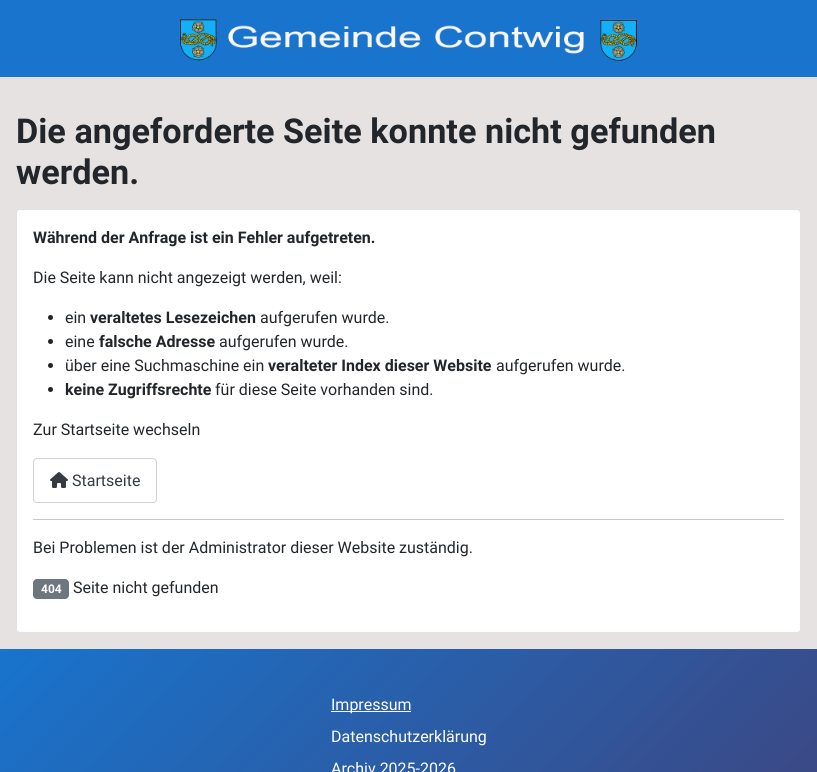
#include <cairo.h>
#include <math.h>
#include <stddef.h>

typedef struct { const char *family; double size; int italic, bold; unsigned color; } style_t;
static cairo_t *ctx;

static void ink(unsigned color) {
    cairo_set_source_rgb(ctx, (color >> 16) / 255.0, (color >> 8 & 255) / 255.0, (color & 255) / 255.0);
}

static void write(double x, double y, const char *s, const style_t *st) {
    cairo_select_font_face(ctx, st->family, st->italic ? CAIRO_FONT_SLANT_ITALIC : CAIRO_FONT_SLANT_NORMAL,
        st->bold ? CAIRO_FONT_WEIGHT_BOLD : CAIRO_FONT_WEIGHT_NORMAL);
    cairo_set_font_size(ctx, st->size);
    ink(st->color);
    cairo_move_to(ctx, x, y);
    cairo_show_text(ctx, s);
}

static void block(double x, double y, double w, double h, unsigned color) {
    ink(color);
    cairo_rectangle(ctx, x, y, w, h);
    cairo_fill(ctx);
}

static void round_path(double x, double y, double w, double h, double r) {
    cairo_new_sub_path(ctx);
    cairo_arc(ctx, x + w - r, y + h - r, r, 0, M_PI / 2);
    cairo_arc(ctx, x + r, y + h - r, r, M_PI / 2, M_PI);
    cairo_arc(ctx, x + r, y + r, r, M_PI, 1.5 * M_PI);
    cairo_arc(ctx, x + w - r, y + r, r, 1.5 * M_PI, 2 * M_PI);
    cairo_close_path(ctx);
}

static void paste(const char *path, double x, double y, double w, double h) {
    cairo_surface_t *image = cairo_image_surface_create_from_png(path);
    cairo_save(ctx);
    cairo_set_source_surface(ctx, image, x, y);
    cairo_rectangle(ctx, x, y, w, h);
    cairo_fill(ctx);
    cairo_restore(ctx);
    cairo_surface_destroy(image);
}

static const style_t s1 = {"Roboto", 34.25, 0, 1, 0x22262a};
static const style_t s2 = {"Roboto", 16, 0, 1, 0x22262a};
static const style_t s3 = {"Roboto", 16, 0, 0, 0x22262a};
static const style_t s4 = {"Roboto", 16, 0, 0, 0x353b41};
static const style_t s5 = {"Roboto", 12, 0, 1, 0xffffff};
static const style_t s6 = {"Roboto", 16, 0, 0, 0xffffff};

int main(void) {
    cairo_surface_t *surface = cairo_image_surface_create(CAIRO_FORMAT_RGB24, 817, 772);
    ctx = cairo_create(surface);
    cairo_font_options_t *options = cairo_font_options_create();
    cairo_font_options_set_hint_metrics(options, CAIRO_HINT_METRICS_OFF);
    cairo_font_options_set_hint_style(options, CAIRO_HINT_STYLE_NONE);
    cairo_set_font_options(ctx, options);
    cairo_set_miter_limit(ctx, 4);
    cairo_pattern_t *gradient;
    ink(0xe6e2e1);
    cairo_paint(ctx);
    block(0, 0, 817, 77, 0x1874cd);
    paste("pic1.png", 179, 19, 459, 42);
    write(16, 143, "Die angeforderte Seite konnte nicht gefunden", &s1);
    write(16, 184, "werden.", &s1);
    ink(0xffffff);
    round_path(16.5, 209.5, 784, 423, 3.5);
    cairo_fill_preserve(ctx);
    ink(0xdfe3e7);
    cairo_set_line_width(ctx, 1);
    cairo_stroke(ctx);
    write(33, 243, "Während der Anfrage ist ein Fehler aufgetreten.", &s2);
    write(33, 283, "Die Seite kann nicht angezeigt werden, weil:", &s3);
    cairo_new_path(ctx);
    cairo_arc(ctx, 50.5, 317.5, 2.5, 0, 2 * M_PI);
    cairo_fill(ctx);
    write(65, 323, "ein", &s3);
    write(90, 323, "veraltetes Lesezeichen", &s2);
    write(260, 323, "aufgerufen wurde.", &s3);
    cairo_new_path(ctx);
    cairo_arc(ctx, 50.5, 341.5, 2.5, 0, 2 * M_PI);
    cairo_fill(ctx);
    write(65, 347, "eine", &s3);
    write(99, 347, "falsche Adresse", &s2);
    write(219, 347, "aufgerufen wurde.", &s3);
    cairo_new_path(ctx);
    cairo_arc(ctx, 50.5, 365.5, 2.5, 0, 2 * M_PI);
    cairo_fill(ctx);
    write(65, 371, "über eine Suchmaschine ein", &s3);
    write(268, 371, "veralteter Index dieser Website", &s2);
    write(496, 371, "aufgerufen wurde.", &s3);
    cairo_new_path(ctx);
    cairo_arc(ctx, 50.5, 389.5, 2.5, 0, 2 * M_PI);
    cairo_fill(ctx);
    write(65, 395, "keine Zugriffsrechte", &s2);
    write(215, 395, "für diese Seite vorhanden sind.", &s3);
    write(33, 435, "Zur Startseite wechseln", &s3);
    round_path(33.5, 458.5, 123, 44, 3.5);
    ink(0xced4da);
    cairo_stroke(ctx);
    paste("pic2.png", 50, 472, 18, 16);
    write(72, 486, "Startseite", &s4);
    block(33, 519, 751, 1, 0xc8c9ca);
    write(33, 553, "Bei Problemen ist der Administrator dieser Website zuständig.", &s3);
    ink(0x6d757e);
    round_path(33, 579, 36, 20, 4);
    cairo_fill(ctx);
    write(41, 593, "404", &s5);
    write(73, 593, "Seite nicht gefunden", &s3);
    gradient = cairo_pattern_create_linear(126, 523, 691, 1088);
    cairo_pattern_add_color_stop_rgba(gradient, 0, 0.094, 0.455, 0.804, 1);
    cairo_pattern_add_color_stop_rgba(gradient, 1, 0.259, 0.251, 0.467, 1);
    cairo_set_source(ctx, gradient);
    cairo_pattern_destroy(gradient);
    cairo_rectangle(ctx, 0, 649, 817, 123);
    cairo_fill(ctx);
    block(331, 711, 80, 1, 0xffffff);
    write(331, 710, "Impressum", &s6);
    write(331, 742, "Datenschutzerklärung", &s6);
    write(331, 774, "Archiv 2025-2026", &s6);
    cairo_surface_write_to_png(surface, "screenshot.png");
    cairo_font_options_destroy(options);
    cairo_destroy(ctx);
    cairo_surface_destroy(surface);
    return 0;
}
